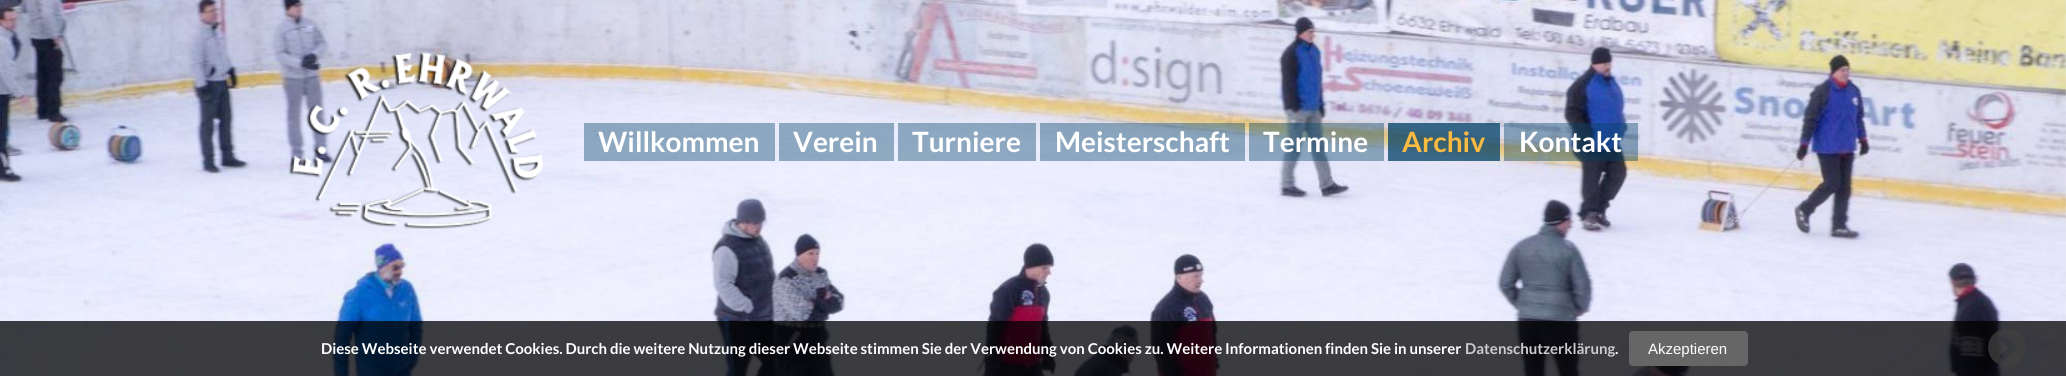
#include <cairo.h>
#include <math.h>
#include <stddef.h>

typedef struct { const char *family; double size; int italic, bold; unsigned color; } style_t;
static cairo_t *ctx;

static void ink(unsigned color) {
    cairo_set_source_rgb(ctx, (color >> 16) / 255.0, (color >> 8 & 255) / 255.0, (color & 255) / 255.0);
}

static void write(double x, double y, const char *s, const style_t *st) {
    cairo_select_font_face(ctx, st->family, st->italic ? CAIRO_FONT_SLANT_ITALIC : CAIRO_FONT_SLANT_NORMAL,
        st->bold ? CAIRO_FONT_WEIGHT_BOLD : CAIRO_FONT_WEIGHT_NORMAL);
    cairo_set_font_size(ctx, st->size);
    ink(st->color);
    cairo_move_to(ctx, x, y);
    cairo_show_text(ctx, s);
}

static void round_path(double x, double y, double w, double h, double r) {
    cairo_new_sub_path(ctx);
    cairo_arc(ctx, x + w - r, y + h - r, r, 0, M_PI / 2);
    cairo_arc(ctx, x + r, y + h - r, r, M_PI / 2, M_PI);
    cairo_arc(ctx, x + r, y + r, r, M_PI, 1.5 * M_PI);
    cairo_arc(ctx, x + w - r, y + r, r, 1.5 * M_PI, 2 * M_PI);
    cairo_close_path(ctx);
}

static void paste(const char *path, double x, double y, double w, double h) {
    cairo_surface_t *image = cairo_image_surface_create_from_png(path);
    cairo_save(ctx);
    cairo_set_source_surface(ctx, image, x, y);
    cairo_rectangle(ctx, x, y, w, h);
    cairo_fill(ctx);
    cairo_restore(ctx);
    cairo_surface_destroy(image);
}

static const style_t s1 = {"Lato", 28, 0, 1, 0xffffff};
static const style_t s2 = {"Lato", 28, 0, 1, 0xfbba41};
static const style_t s3 = {"Lato", 15, 0, 1, 0xffffff};
static const style_t s4 = {"Lato", 15, 0, 1, 0xcccccc};
static const style_t s5 = {"Liberation Sans", 15, 0, 0, 0xffffff};

int main(void) {
    cairo_surface_t *surface = cairo_image_surface_create(CAIRO_FORMAT_RGB24, 2066, 376);
    ctx = cairo_create(surface);
    cairo_font_options_t *options = cairo_font_options_create();
    cairo_font_options_set_hint_metrics(options, CAIRO_HINT_METRICS_OFF);
    cairo_font_options_set_hint_style(options, CAIRO_HINT_STYLE_NONE);
    cairo_set_font_options(ctx, options);
    cairo_set_miter_limit(ctx, 4);
    ink(0xffffff);
    cairo_paint(ctx);
    paste("pic1.png", 0, 0, 2066, 376);
    paste("pic2.png", 1988, 329, 38, 37);
    paste("pic3.png", 288, 52, 255, 177);
    cairo_set_source_rgba(ctx, 0, 0.255, 0.4, 0.4);
    cairo_rectangle(ctx, 584, 123, 191, 38);
    cairo_fill(ctx);
    write(598, 152, "Willkommen", &s1);
    cairo_set_source_rgba(ctx, 0, 0.255, 0.4, 0.4);
    cairo_rectangle(ctx, 779, 123, 115, 38);
    cairo_fill(ctx);
    write(793, 152, "Verein", &s1);
    cairo_set_source_rgba(ctx, 0, 0.255, 0.4, 0.4);
    cairo_rectangle(ctx, 898, 123, 138, 38);
    cairo_fill(ctx);
    write(912, 152, "Turniere", &s1);
    cairo_set_source_rgba(ctx, 0, 0.255, 0.4, 0.4);
    cairo_rectangle(ctx, 1040, 123, 205, 38);
    cairo_fill(ctx);
    write(1055, 152, "Meisterschaft", &s1);
    cairo_set_source_rgba(ctx, 0, 0.255, 0.4, 0.4);
    cairo_rectangle(ctx, 1249, 123, 135, 38);
    cairo_fill(ctx);
    write(1263, 152, "Termine", &s1);
    cairo_set_source_rgba(ctx, 0, 0.255, 0.4, 0.5);
    cairo_rectangle(ctx, 1388, 123, 112, 38);
    cairo_fill(ctx);
    cairo_rectangle(ctx, 1388, 123, 112, 38);
    cairo_fill(ctx);
    write(1402, 152, "Archiv", &s2);
    cairo_set_source_rgba(ctx, 0, 0.255, 0.4, 0.4);
    cairo_rectangle(ctx, 1504, 123, 134, 38);
    cairo_fill(ctx);
    write(1519, 152, "Kontakt", &s1);
    cairo_set_source_rgba(ctx, 0, 0, 0, 0.75);
    cairo_rectangle(ctx, 0, 321, 2066, 55);
    cairo_fill(ctx);
    write(321, 354, "Diese Webseite verwendet Cookies. Durch die weitere Nutzung dieser Webseite stimmen Sie der Verwendung von Cookies zu. Weitere Informationen finden Sie in unserer", &s3);
    write(1465, 354, "Datenschutzerklärung", &s4);
    write(1615, 354, ".", &s3);
    ink(0x666666);
    round_path(1629, 331, 119, 35, 4);
    cairo_fill(ctx);
    write(1648, 354, "Akzeptieren", &s5);
    cairo_surface_write_to_png(surface, "screenshot.png");
    cairo_font_options_destroy(options);
    cairo_destroy(ctx);
    cairo_surface_destroy(surface);
    return 0;
}
